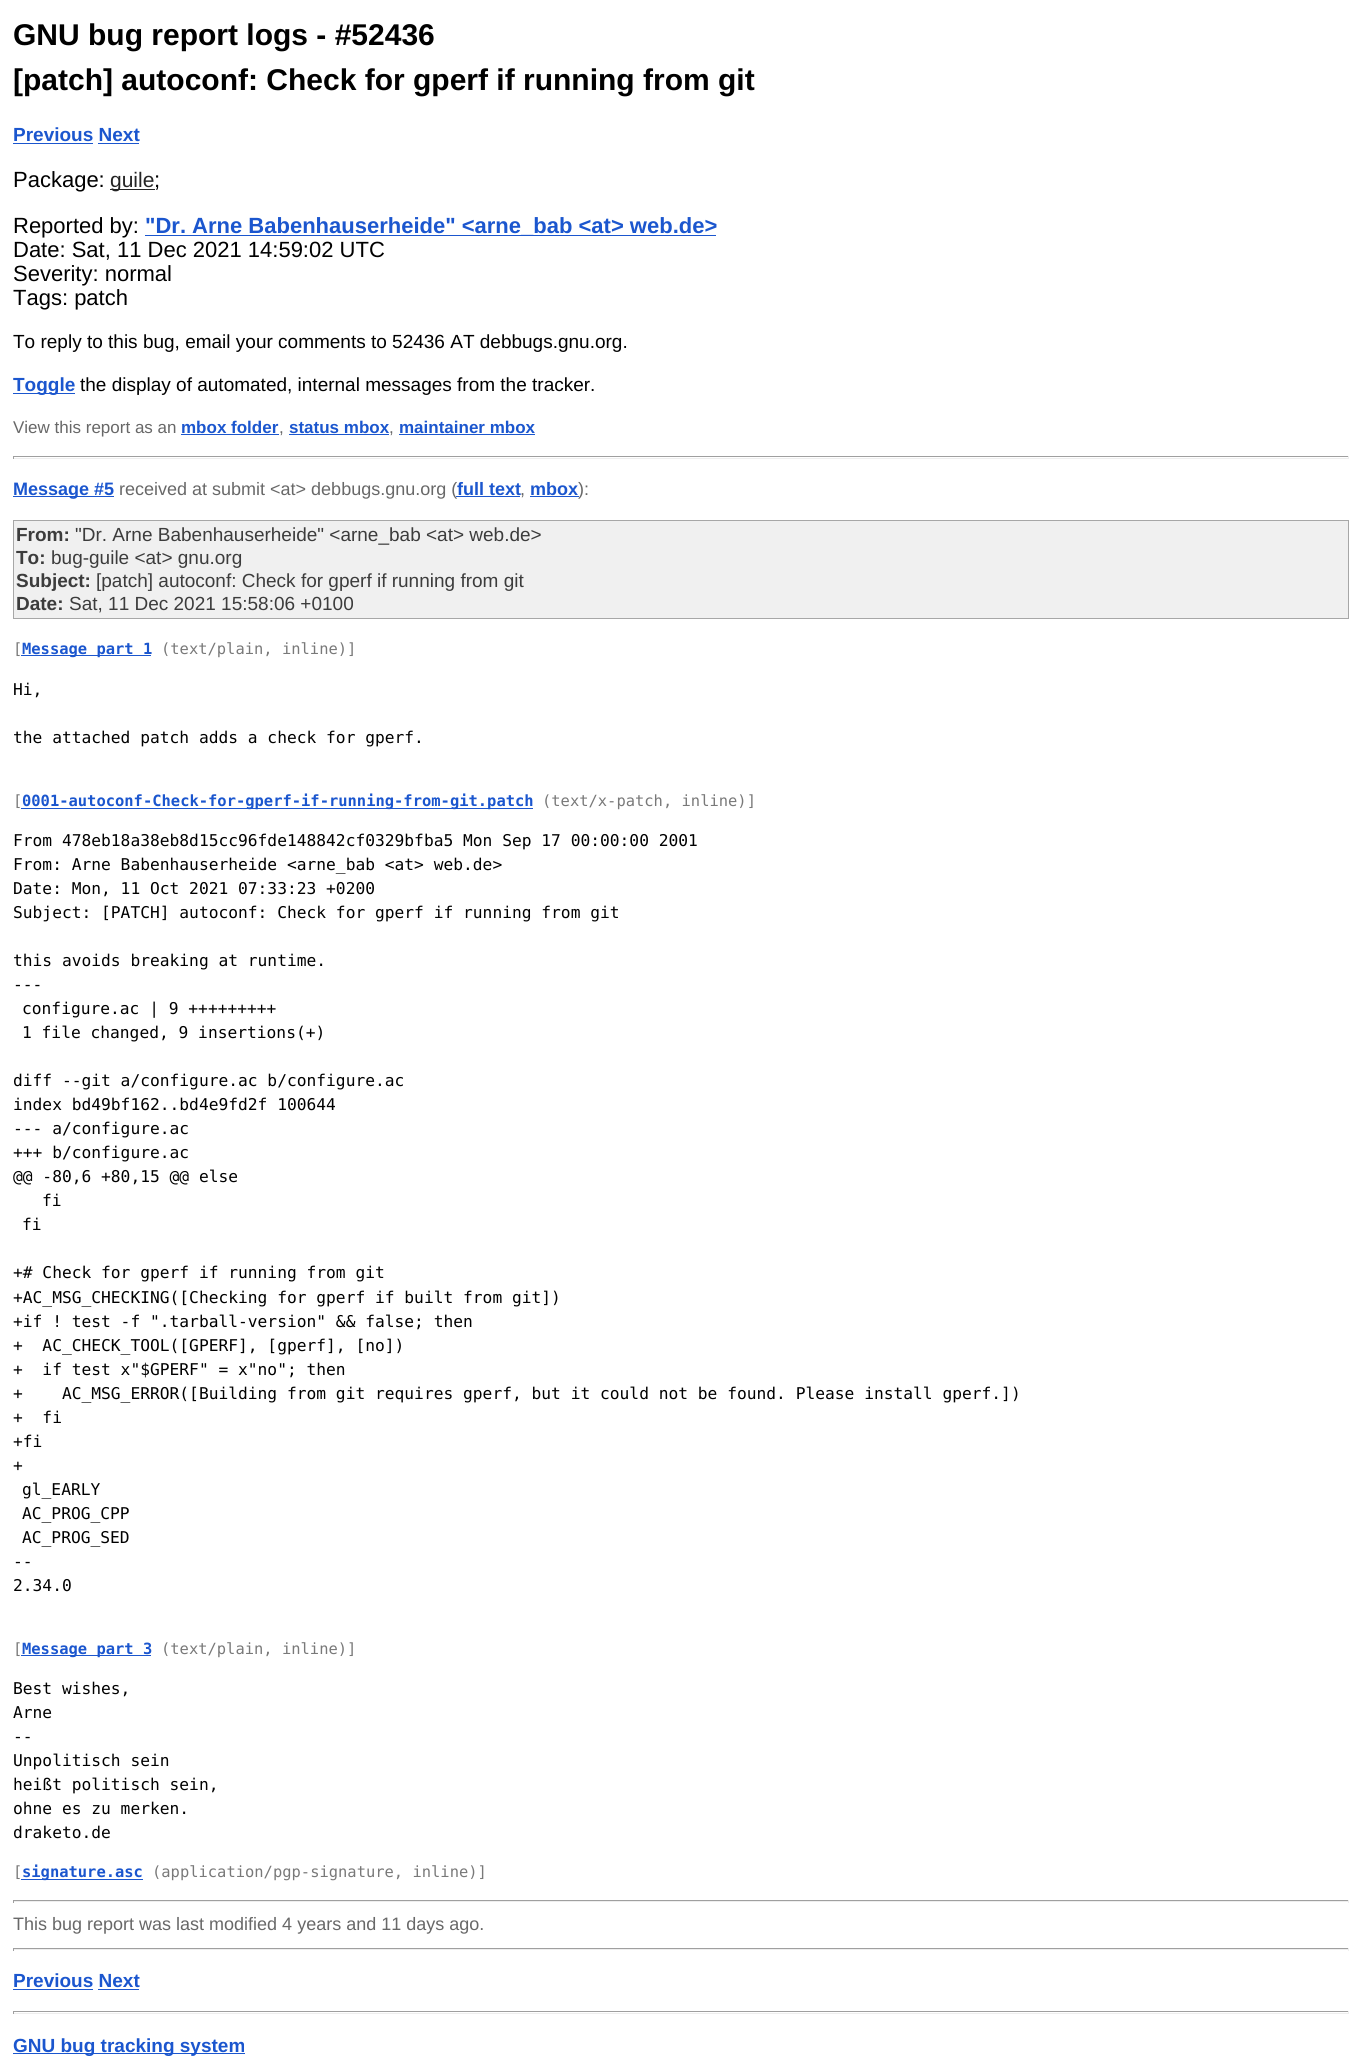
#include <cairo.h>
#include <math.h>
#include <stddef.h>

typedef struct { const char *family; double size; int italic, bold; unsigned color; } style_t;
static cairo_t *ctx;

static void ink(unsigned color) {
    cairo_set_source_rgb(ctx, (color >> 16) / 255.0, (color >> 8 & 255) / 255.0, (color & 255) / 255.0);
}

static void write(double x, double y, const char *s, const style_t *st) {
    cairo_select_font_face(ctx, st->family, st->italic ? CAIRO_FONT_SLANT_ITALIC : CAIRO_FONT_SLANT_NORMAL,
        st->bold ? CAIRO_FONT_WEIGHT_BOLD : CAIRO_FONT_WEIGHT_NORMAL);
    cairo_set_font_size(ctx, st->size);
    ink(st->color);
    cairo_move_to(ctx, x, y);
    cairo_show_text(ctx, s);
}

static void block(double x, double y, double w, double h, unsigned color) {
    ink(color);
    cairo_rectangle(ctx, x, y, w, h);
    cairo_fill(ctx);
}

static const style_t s1 = {"Liberation Sans", 30, 0, 1, 0x000000};
static const style_t s2 = {"Liberation Sans", 19, 0, 1, 0x1b56ce};
static const style_t s3 = {"Liberation Sans", 22, 0, 0, 0x000000};
static const style_t s4 = {"Liberation Sans", 21, 0, 0, 0x242424};
static const style_t s5 = {"Liberation Sans", 22, 0, 1, 0x1b56ce};
static const style_t s6 = {"Liberation Sans", 19, 0, 0, 0x000000};
static const style_t s7 = {"Liberation Sans", 17, 0, 0, 0x686868};
static const style_t s8 = {"Liberation Sans", 17, 0, 1, 0x1b56ce};
static const style_t s9 = {"Liberation Sans", 18, 0, 1, 0x1b56ce};
static const style_t s10 = {"Liberation Sans", 18, 0, 0, 0x686868};
static const style_t s11 = {"Liberation Sans", 19, 0, 1, 0x3c3c3c};
static const style_t s12 = {"Liberation Sans", 19, 0, 0, 0x3c3c3c};
static const style_t s13 = {"DejaVu Sans Mono", 15.45, 0, 0, 0x797979};
static const style_t s14 = {"DejaVu Sans Mono", 15.45, 0, 1, 0x1b56ce};
static const style_t s15 = {"DejaVu Sans Mono", 16.25, 0, 0, 0x000000};

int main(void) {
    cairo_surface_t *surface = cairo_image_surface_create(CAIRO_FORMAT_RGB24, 1361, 2056);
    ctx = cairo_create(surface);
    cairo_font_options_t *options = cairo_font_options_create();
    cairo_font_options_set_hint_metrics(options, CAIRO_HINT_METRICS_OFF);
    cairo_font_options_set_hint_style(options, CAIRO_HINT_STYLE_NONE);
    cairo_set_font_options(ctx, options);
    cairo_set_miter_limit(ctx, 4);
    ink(0xffffff);
    cairo_paint(ctx);
    write(13, 45, "GNU bug report logs - #52436", &s1);
    write(13, 90, "[patch] autoconf: Check for gperf if running from git", &s1);
    write(13, 141, "Previous Next", &s2);
    block(13, 143, 80, 1, 0x1b56ce);
    block(98, 143, 41, 1, 0x1b56ce);
    write(13, 187, "Package:", &s3);
    block(110, 189, 45, 1, 0x242424);
    write(110, 187, "guile", &s4);
    write(154, 187, ";", &s3);
    write(13, 233, "Reported by:", &s3);
    block(145, 235, 571, 1, 0x1b56ce);
    write(145, 233, "\"Dr. Arne Babenhauserheide\" <arne_bab <at> web.de>", &s5);
    write(13, 257, "Date: Sat, 11 Dec 2021 14:59:02 UTC", &s3);
    write(13, 281, "Severity: normal", &s3);
    write(13, 305, "Tags: patch", &s3);
    write(13, 348, "To reply to this bug, email your comments to 52436 AT debbugs.gnu.org.", &s6);
    block(13, 393, 62, 1, 0x1b56ce);
    write(13, 391, "Toggle", &s2);
    write(80, 391, "the display of automated, internal messages from the tracker.", &s6);
    write(13, 433, "View this report as an", &s7);
    write(181, 433, "mbox folder", &s8);
    block(181, 434, 98, 1, 0x1b56ce);
    write(279, 433, ",", &s7);
    write(289, 433, "status mbox", &s8);
    block(289, 434, 100, 1, 0x1b56ce);
    write(389, 433, ",", &s7);
    write(399, 433, "maintainer mbox", &s8);
    block(399, 434, 136, 1, 0x1b56ce);
    block(13, 456, 1336, 1, 0x9f9f9f);
    block(1348, 456, 1, 3, 0xeeeeee);
    block(13, 458, 1336, 1, 0xeeeeee);
    block(13, 456, 1, 3, 0x9f9f9f);
    block(13, 496, 101, 1, 0x1b56ce);
    write(13, 495, "Message #5", &s9);
    write(119, 495, "received at submit <at> debbugs.gnu.org (", &s10);
    write(457, 495, "full text", &s9);
    block(456, 496, 64, 1, 0x1b56ce);
    write(520, 495, ",", &s10);
    write(530, 495, "mbox", &s9);
    block(530, 496, 49, 1, 0x1b56ce);
    write(578, 495, "):", &s10);
    ink(0xf0f0f0);
    cairo_rectangle(ctx, 13.5, 520.5, 1335, 98);
    cairo_fill_preserve(ctx);
    ink(0xa7a7a7);
    cairo_set_line_width(ctx, 1);
    cairo_stroke(ctx);
    write(16, 541, "From:", &s11);
    write(75, 541, "\"Dr. Arne Babenhauserheide\" <arne_bab <at> web.de>", &s12);
    write(16, 564, "To:", &s11);
    write(51, 564, "bug-guile <at> gnu.org", &s12);
    write(16, 587, "Subject:", &s11);
    write(96, 587, "[patch] autoconf: Check for gperf if running from git", &s12);
    write(16, 610, "Date:", &s11);
    write(69, 610, "Sat, 11 Dec 2021 15:58:06 +0100", &s12);
    write(13, 654, "[", &s13);
    block(21, 655, 130, 1, 0x1b56ce);
    write(22, 654, "Message part 1", &s14);
    write(161, 654, "(text/plain, inline)]", &s13);
    write(13, 695, "Hi,", &s15);
    write(13, 743, "the attached patch adds a check for gperf.", &s15);
    write(13, 806, "[", &s13);
    block(21, 808, 512, 1, 0x1b56ce);
    write(22, 806, "0001-autoconf-Check-for-gperf-if-running-from-git.patch", &s14);
    write(542, 806, "(text/x-patch, inline)]", &s13);
    write(13, 846, "From 478eb18a38eb8d15cc96fde148842cf0329bfba5 Mon Sep 17 00:00:00 2001", &s15);
    write(13, 870, "From: Arne Babenhauserheide <arne_bab <at> web.de>", &s15);
    write(13, 894, "Date: Mon, 11 Oct 2021 07:33:23 +0200", &s15);
    write(13, 918, "Subject: [PATCH] autoconf: Check for gperf if running from git", &s15);
    write(13, 966, "this avoids breaking at runtime.", &s15);
    write(13, 990, "---", &s15);
    write(22, 1014, "configure.ac | 9 +++++++++", &s15);
    write(22, 1038, "1 file changed, 9 insertions(+)", &s15);
    write(13, 1086, "diff --git a/configure.ac b/configure.ac", &s15);
    write(13, 1110, "index bd49bf162..bd4e9fd2f 100644", &s15);
    write(13, 1134, "--- a/configure.ac", &s15);
    write(13, 1158, "+++ b/configure.ac", &s15);
    write(13, 1182, "@@ -80,6 +80,15 @@ else", &s15);
    write(42, 1206, "fi", &s15);
    write(22, 1230, "fi", &s15);
    write(13, 1278, "+# Check for gperf if running from git", &s15);
    write(13, 1303, "+AC_MSG_CHECKING([Checking for gperf if built from git])", &s15);
    write(13, 1327, "+if ! test -f \".tarball-version\" && false; then", &s15);
    write(13, 1351, "+  AC_CHECK_TOOL([GPERF], [gperf], [no])", &s15);
    write(13, 1375, "+  if test x\"$GPERF\" = x\"no\"; then", &s15);
    write(13, 1399, "+    AC_MSG_ERROR([Building from git requires gperf, but it could not be found. Please install gperf.])", &s15);
    write(13, 1423, "+  fi", &s15);
    write(13, 1447, "+fi", &s15);
    write(13, 1471, "+", &s15);
    write(22, 1495, "gl_EARLY", &s15);
    write(22, 1519, "AC_PROG_CPP", &s15);
    write(22, 1543, "AC_PROG_SED", &s15);
    write(13, 1567, "--", &s15);
    write(13, 1591, "2.34.0", &s15);
    write(13, 1654, "[", &s13);
    block(21, 1655, 130, 1, 0x1b56ce);
    write(22, 1654, "Message part 3", &s14);
    write(161, 1654, "(text/plain, inline)]", &s13);
    write(13, 1694, "Best wishes,", &s15);
    write(13, 1718, "Arne", &s15);
    write(13, 1742, "--", &s15);
    write(13, 1766, "Unpolitisch sein", &s15);
    write(13, 1790, "heißt politisch sein,", &s15);
    write(13, 1814, "ohne es zu merken.", &s15);
    write(13, 1838, "draketo.de", &s15);
    write(13, 1877, "[", &s13);
    block(21, 1879, 122, 1, 0x1b56ce);
    write(22, 1877, "signature.asc", &s14);
    write(152, 1877, "(application/pgp-signature, inline)]", &s13);
    block(13, 1900, 1336, 1, 0x9f9f9f);
    block(1348, 1900, 1, 3, 0xeeeeee);
    block(13, 1901, 1336, 1, 0xeeeeee);
    block(13, 1900, 1, 3, 0x9f9f9f);
    write(13, 1930, "This bug report was last modified 4 years and 11 days ago.", &s10);
    block(13, 1948, 1336, 1, 0x9f9f9f);
    block(1348, 1948, 1, 3, 0xeeeeee);
    block(13, 1949, 1336, 1, 0xeeeeee);
    block(13, 1948, 1, 3, 0x9f9f9f);
    write(13, 1987, "Previous Next", &s2);
    block(13, 1989, 80, 1, 0x1b56ce);
    block(98, 1989, 41, 1, 0x1b56ce);
    block(13, 2011, 1336, 1, 0x9f9f9f);
    block(1348, 2011, 1, 3, 0xeeeeee);
    block(13, 2013, 1336, 1, 0xeeeeee);
    block(13, 2011, 1, 3, 0x9f9f9f);
    block(13, 2053, 232, 1, 0x1b56ce);
    write(13, 2052, "GNU bug tracking system", &s2);
    cairo_surface_write_to_png(surface, "screenshot.png");
    cairo_font_options_destroy(options);
    cairo_destroy(ctx);
    cairo_surface_destroy(surface);
    return 0;
}
